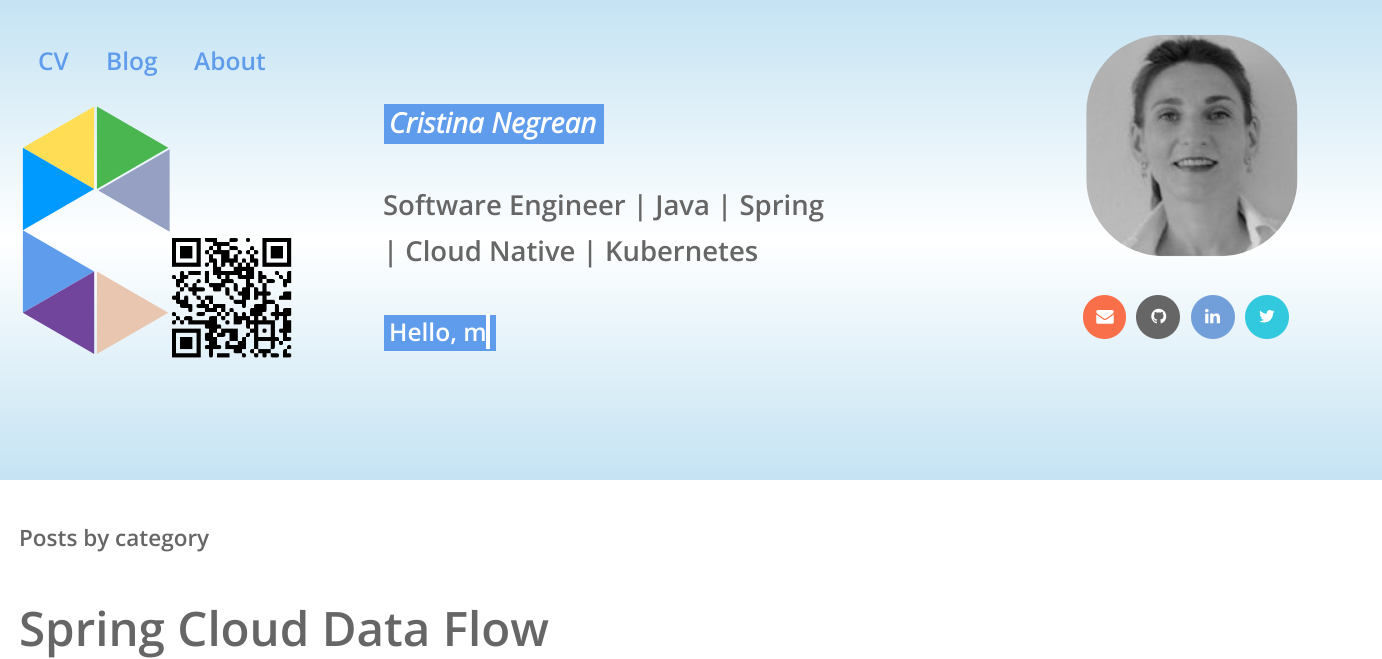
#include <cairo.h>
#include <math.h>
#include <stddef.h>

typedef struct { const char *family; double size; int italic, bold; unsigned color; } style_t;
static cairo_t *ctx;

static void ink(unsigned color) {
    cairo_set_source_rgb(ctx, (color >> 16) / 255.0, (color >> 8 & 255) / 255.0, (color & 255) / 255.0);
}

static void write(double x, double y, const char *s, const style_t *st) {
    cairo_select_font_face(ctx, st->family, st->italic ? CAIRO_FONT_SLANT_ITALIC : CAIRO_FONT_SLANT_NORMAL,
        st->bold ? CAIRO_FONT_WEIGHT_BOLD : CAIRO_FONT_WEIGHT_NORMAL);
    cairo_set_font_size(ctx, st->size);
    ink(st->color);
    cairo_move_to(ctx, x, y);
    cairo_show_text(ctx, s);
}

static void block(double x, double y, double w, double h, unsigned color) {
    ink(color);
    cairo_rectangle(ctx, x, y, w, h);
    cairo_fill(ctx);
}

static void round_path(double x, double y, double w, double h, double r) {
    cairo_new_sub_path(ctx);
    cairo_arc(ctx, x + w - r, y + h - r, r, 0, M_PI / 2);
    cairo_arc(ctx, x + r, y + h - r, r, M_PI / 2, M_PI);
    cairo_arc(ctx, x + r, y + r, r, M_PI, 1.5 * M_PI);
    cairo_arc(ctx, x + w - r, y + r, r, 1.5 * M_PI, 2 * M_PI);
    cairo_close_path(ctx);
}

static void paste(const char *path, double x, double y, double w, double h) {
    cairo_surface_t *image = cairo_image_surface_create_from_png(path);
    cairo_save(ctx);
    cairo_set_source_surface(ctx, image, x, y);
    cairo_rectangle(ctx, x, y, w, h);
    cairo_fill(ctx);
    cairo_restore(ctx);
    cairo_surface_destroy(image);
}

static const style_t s1 = {"Open Sans SemiBold", 24.5, 0, 0, 0x609cec};
static const style_t s2 = {"Open Sans", 28, 1, 1, 0xffffff};
static const style_t s3 = {"Open Sans SemiBold", 27.5, 0, 0, 0x666666};
static const style_t s4 = {"Open Sans SemiBold", 24.5, 0, 0, 0xffffff};
static const style_t s5 = {"Open Sans SemiBold", 22.5, 0, 0, 0x666666};
static const style_t s6 = {"Open Sans SemiBold", 47.5, 0, 0, 0x666666};

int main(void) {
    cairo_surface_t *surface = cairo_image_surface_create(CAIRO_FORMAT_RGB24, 1382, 659);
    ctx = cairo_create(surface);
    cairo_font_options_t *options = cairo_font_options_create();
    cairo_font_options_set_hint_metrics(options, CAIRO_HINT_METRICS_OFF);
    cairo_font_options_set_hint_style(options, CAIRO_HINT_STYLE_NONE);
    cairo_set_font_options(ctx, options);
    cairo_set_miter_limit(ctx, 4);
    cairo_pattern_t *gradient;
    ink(0xffffff);
    cairo_paint(ctx);
    gradient = cairo_pattern_create_linear(691, 0, 691, 480);
    cairo_pattern_add_color_stop_rgba(gradient, 0, 0.769, 0.89, 0.953, 1);
    cairo_pattern_add_color_stop_rgba(gradient, 0.5, 1, 1, 1, 1);
    cairo_pattern_add_color_stop_rgba(gradient, 1, 0.769, 0.89, 0.953, 1);
    cairo_set_source(ctx, gradient);
    cairo_pattern_destroy(gradient);
    cairo_rectangle(ctx, 0, 0, 1382, 480);
    cairo_fill(ctx);
    write(38, 70, "CV", &s1);
    write(106, 70, "Blog", &s1);
    write(194, 70, "About", &s1);
    paste("pic1.png", 22, 106, 270, 252);
    block(384, 104, 220, 40, 0x609cec);
    write(389, 133, "Cristina Negrean", &s2);
    write(383, 215, "Software Engineer | Java | Spring", &s3);
    write(383, 261, "| Cloud Native | Kubernetes", &s3);
    block(384, 315, 112, 36, 0x609cec);
    write(389, 341, "Hello, m", &s4);
    block(486, 315, 4, 34, 0xffffff);
    paste("pic2.png", 1086, 35, 212, 222);
    ink(0xf96f4a);
    round_path(1083, 295, 43, 44, 21.5);
    cairo_fill(ctx);
    paste("pic3.png", 1096, 310, 18, 14);
    ink(0x666666);
    cairo_arc(ctx, 1158, 317, 22, 0, 2 * M_PI);
    cairo_fill(ctx);
    paste("pic4.png", 1151, 308, 16, 16);
    ink(0x729fda);
    cairo_arc(ctx, 1213, 317, 22, 0, 2 * M_PI);
    cairo_fill(ctx);
    paste("pic5.png", 1205, 309, 15, 15);
    ink(0x32c8de);
    cairo_arc(ctx, 1267, 317, 22, 0, 2 * M_PI);
    cairo_fill(ctx);
    paste("pic6.png", 1259, 310, 16, 13);
    write(19, 546, "Posts by category", &s5);
    write(19, 646, "Spring Cloud Data Flow", &s6);
    cairo_surface_write_to_png(surface, "screenshot.png");
    cairo_font_options_destroy(options);
    cairo_destroy(ctx);
    cairo_surface_destroy(surface);
    return 0;
}
